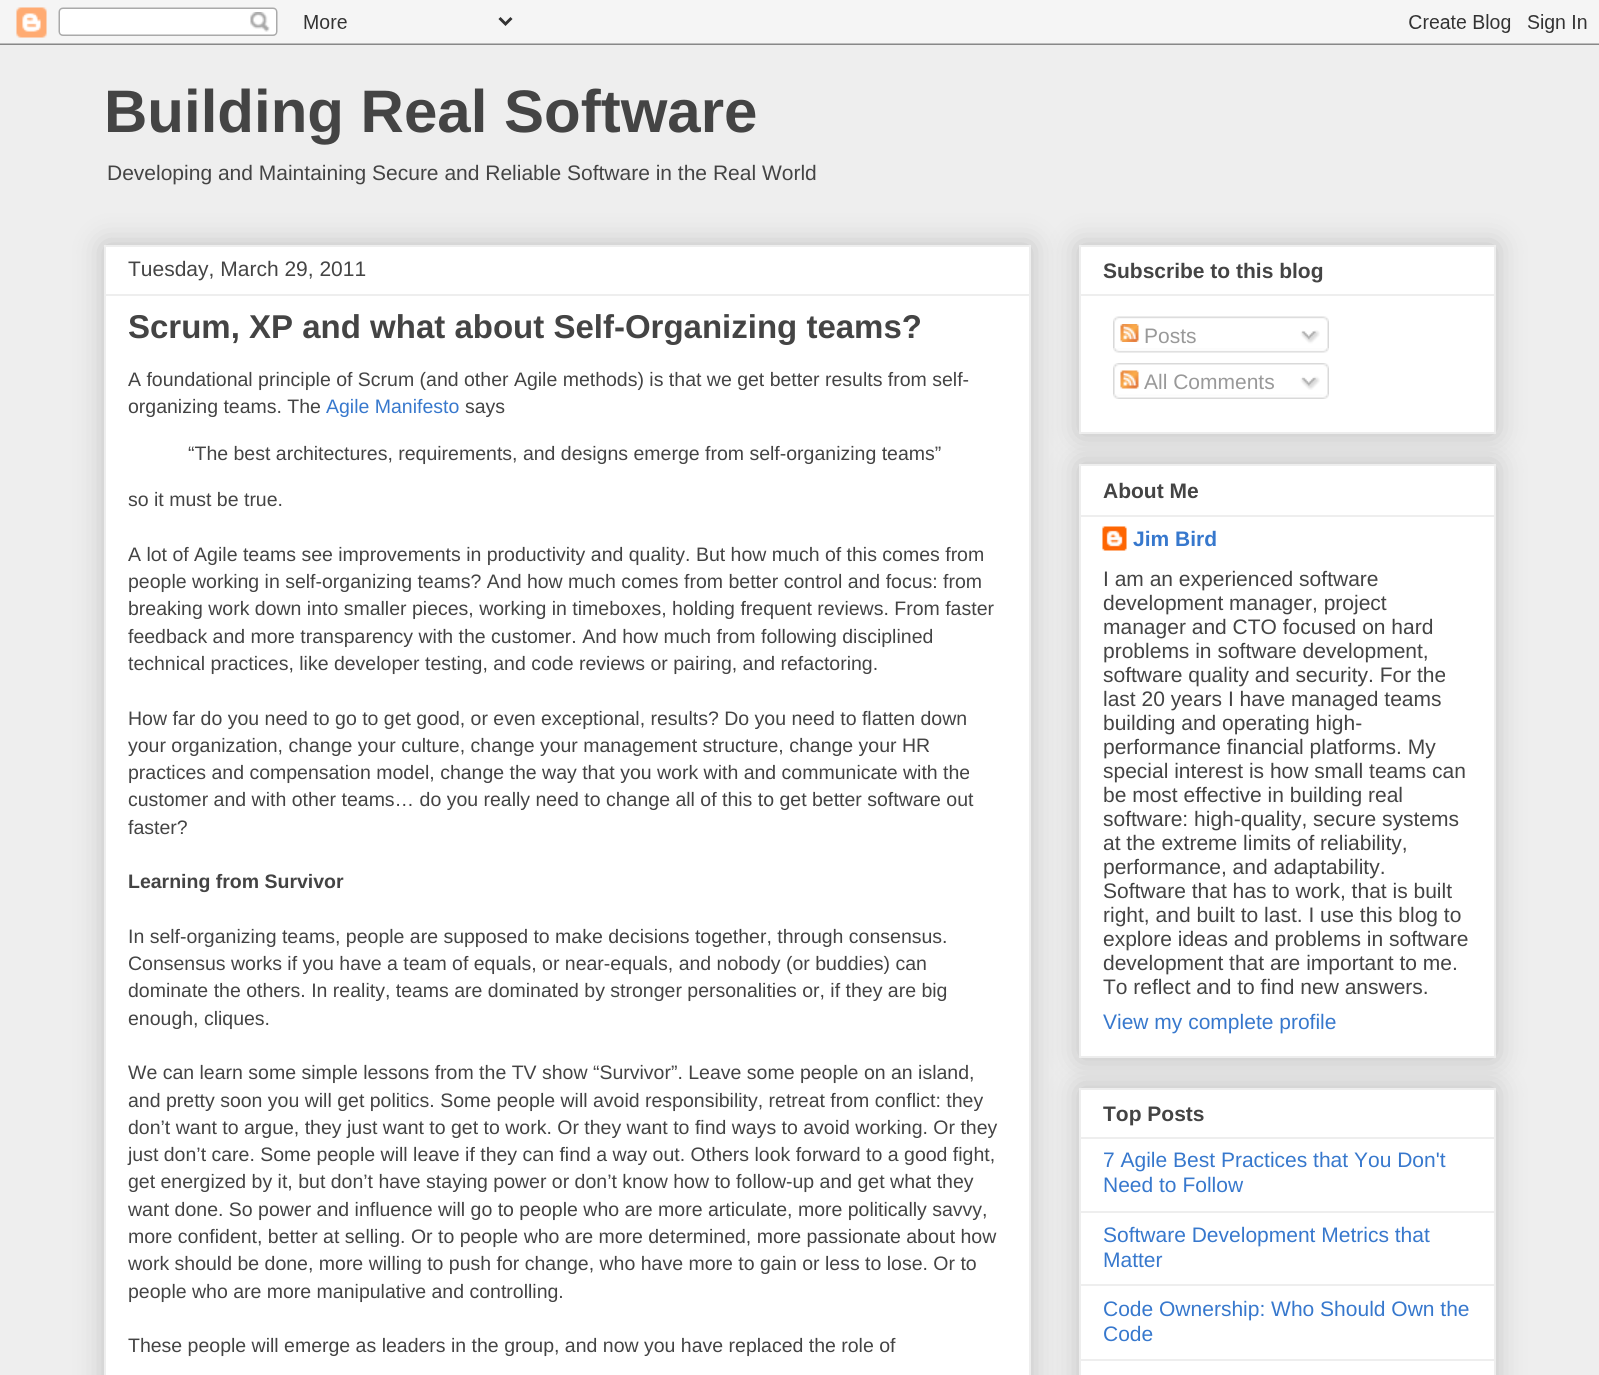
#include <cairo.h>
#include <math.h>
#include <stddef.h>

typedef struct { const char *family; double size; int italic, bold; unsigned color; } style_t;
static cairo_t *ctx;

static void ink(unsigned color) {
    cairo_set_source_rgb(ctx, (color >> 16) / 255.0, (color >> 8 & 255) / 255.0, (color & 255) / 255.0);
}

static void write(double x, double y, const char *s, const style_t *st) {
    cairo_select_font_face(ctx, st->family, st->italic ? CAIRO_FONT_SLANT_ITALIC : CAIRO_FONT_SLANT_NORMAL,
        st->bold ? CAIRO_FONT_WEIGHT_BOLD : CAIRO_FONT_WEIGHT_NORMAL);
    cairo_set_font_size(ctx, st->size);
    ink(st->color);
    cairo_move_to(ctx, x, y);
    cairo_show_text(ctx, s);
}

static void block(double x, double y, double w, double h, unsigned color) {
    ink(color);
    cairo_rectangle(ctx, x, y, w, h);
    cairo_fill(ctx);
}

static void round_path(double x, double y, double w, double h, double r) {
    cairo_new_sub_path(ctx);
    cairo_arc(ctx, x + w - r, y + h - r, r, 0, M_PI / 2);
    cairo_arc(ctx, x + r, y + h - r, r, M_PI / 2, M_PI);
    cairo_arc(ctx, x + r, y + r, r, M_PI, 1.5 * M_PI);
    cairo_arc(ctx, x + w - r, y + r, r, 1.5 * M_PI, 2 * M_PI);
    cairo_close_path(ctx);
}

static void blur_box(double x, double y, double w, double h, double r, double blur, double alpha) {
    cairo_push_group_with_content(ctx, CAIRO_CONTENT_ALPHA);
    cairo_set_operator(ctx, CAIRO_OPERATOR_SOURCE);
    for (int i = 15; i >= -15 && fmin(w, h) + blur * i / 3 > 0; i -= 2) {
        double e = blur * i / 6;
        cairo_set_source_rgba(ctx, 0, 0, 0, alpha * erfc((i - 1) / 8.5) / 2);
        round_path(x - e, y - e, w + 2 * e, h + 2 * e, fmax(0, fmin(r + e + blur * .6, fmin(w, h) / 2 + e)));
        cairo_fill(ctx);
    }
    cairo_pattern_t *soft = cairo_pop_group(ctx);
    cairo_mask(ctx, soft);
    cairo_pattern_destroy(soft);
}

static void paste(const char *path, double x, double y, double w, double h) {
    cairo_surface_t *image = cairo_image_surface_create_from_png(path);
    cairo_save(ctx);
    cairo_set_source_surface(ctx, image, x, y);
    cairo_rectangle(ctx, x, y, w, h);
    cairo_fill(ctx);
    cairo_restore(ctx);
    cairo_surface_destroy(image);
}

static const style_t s1 = {"Liberation Sans", 60, 0, 1, 0x444444};
static const style_t s2 = {"Liberation Sans", 21, 0, 0, 0x444444};
static const style_t s3 = {"Liberation Sans", 33, 0, 1, 0x444444};
static const style_t s4 = {"Liberation Sans", 19.5, 0, 0, 0x444444};
static const style_t s5 = {"Liberation Sans", 19.5, 0, 0, 0x3778cd};
static const style_t s6 = {"Liberation Sans", 19.5, 0, 1, 0x444444};
static const style_t s7 = {"Liberation Sans", 21, 0, 1, 0x444444};
static const style_t s8 = {"Liberation Sans", 21, 0, 0, 0x999999};
static const style_t s9 = {"Liberation Sans", 21, 0, 1, 0x3778cd};
static const style_t s10 = {"Liberation Sans", 21, 0, 0, 0x3778cd};

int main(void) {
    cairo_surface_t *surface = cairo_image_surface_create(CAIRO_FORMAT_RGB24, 1599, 1375);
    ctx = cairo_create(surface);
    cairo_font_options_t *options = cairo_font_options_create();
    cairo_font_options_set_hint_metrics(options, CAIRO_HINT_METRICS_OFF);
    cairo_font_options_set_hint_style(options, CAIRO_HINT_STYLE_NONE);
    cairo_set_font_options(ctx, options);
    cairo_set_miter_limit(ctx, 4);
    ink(0xeeeeee);
    cairo_paint(ctx);
    paste("pic1.png", 0, 0, 1599, 45);
    write(104, 132, "Building Real Software", &s1);
    write(107, 180, "Developing and Maintaining Secure and Reliable Software in the Real World", &s2);
    ink(0x000000);
    blur_box(104, 245, 927, 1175, 0, 15, 0.2);
    ink(0xffffff);
    cairo_rectangle(ctx, 105, 246, 925, 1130);
    cairo_fill_preserve(ctx);
    ink(0xeeeeee);
    cairo_stroke(ctx);
    write(128, 276, "Tuesday, March 29, 2011", &s2);
    block(105, 294, 924, 2, 0xeeeeee);
    write(128, 338, "Scrum, XP and what about Self-Organizing teams?", &s3);
    write(128, 386, "A foundational principle of Scrum (and other Agile methods) is that we get better results from self-", &s4);
    write(128, 413, "organizing teams. The", &s4);
    write(326, 413, "Agile Manifesto", &s5);
    write(465, 413, "says", &s4);
    write(188, 460, "“The best architectures, requirements, and designs emerge from self-organizing teams”", &s4);
    write(128, 506, "so it must be true.", &s4);
    write(128, 561, "A lot of Agile teams see improvements in productivity and quality. But how much of this comes from", &s4);
    write(128, 588, "people working in self-organizing teams? And how much comes from better control and focus: from", &s4);
    write(128, 615, "breaking work down into smaller pieces, working in timeboxes, holding frequent reviews. From faster", &s4);
    write(128, 643, "feedback and more transparency with the customer. And how much from following disciplined", &s4);
    write(128, 670, "technical practices, like developer testing, and code reviews or pairing, and refactoring.", &s4);
    write(128, 725, "How far do you need to go to get good, or even exceptional, results? Do you need to flatten down", &s4);
    write(128, 752, "your organization, change your culture, change your management structure, change your HR", &s4);
    write(128, 779, "practices and compensation model, change the way that you work with and communicate with the", &s4);
    write(128, 806, "customer and with other teams… do you really need to change all of this to get better software out", &s4);
    write(128, 834, "faster?", &s4);
    write(128, 888, "Learning from Survivor", &s6);
    write(128, 943, "In self-organizing teams, people are supposed to make decisions together, through consensus.", &s4);
    write(128, 970, "Consensus works if you have a team of equals, or near-equals, and nobody (or buddies) can", &s4);
    write(128, 997, "dominate the others. In reality, teams are dominated by stronger personalities or, if they are big", &s4);
    write(128, 1025, "enough, cliques.", &s4);
    write(128, 1079, "We can learn some simple lessons from the TV show “Survivor”. Leave some people on an island,", &s4);
    write(128, 1107, "and pretty soon you will get politics. Some people will avoid responsibility, retreat from conflict: they", &s4);
    write(128, 1134, "don’t want to argue, they just want to get to work. Or they want to find ways to avoid working. Or they", &s4);
    write(128, 1161, "just don’t care. Some people will leave if they can find a way out. Others look forward to a good fight,", &s4);
    write(128, 1188, "get energized by it, but don’t have staying power or don’t know how to follow-up and get what they", &s4);
    write(128, 1216, "want done. So power and influence will go to people who are more articulate, more politically savvy,", &s4);
    write(128, 1243, "more confident, better at selling. Or to people who are more determined, more passionate about how", &s4);
    write(128, 1270, "work should be done, more willing to push for change, who have more to gain or less to lose. Or to", &s4);
    write(128, 1298, "people who are more manipulative and controlling.", &s4);
    write(128, 1352, "These people will emerge as leaders in the group, and now you have replaced the role of", &s4);
    ink(0x000000);
    blur_box(1079, 245, 417, 189, 0, 15, 0.2);
    ink(0xffffff);
    cairo_rectangle(ctx, 1080, 246, 415, 187);
    cairo_fill_preserve(ctx);
    ink(0xeeeeee);
    cairo_stroke(ctx);
    write(1103, 278, "Subscribe to this blog", &s7);
    block(1080, 294, 414, 2, 0xeeeeee);
    paste("pic2.png", 1113, 316, 216, 32);
    paste("pic3.png", 1120, 324, 19, 18);
    write(1144, 343, "Posts", &s8);
    paste("pic4.png", 1300, 330, 20, 14);
    paste("pic5.png", 1113, 348, 216, 5);
    paste("pic6.png", 1113, 363, 216, 32);
    paste("pic7.png", 1120, 370, 19, 19);
    write(1144, 389, "All Comments", &s8);
    paste("pic8.png", 1300, 376, 20, 14);
    paste("pic9.png", 1113, 394, 216, 5);
    ink(0x000000);
    blur_box(1079, 464, 417, 594, 0, 15, 0.2);
    ink(0xffffff);
    cairo_rectangle(ctx, 1080, 465, 415, 592);
    cairo_fill_preserve(ctx);
    ink(0xeeeeee);
    cairo_stroke(ctx);
    write(1103, 498, "About Me", &s7);
    block(1080, 515, 414, 2, 0xeeeeee);
    paste("pic10.png", 1102, 526, 25, 25);
    write(1133, 546, "Jim Bird", &s9);
    write(1103, 586, "I am an experienced software", &s2);
    write(1103, 610, "development manager, project", &s2);
    write(1103, 634, "manager and CTO focused on hard", &s2);
    write(1103, 658, "problems in software development,", &s2);
    write(1103, 682, "software quality and security. For the", &s2);
    write(1103, 706, "last 20 years I have managed teams", &s2);
    write(1103, 730, "building and operating high-", &s2);
    write(1103, 754, "performance financial platforms. My", &s2);
    write(1103, 778, "special interest is how small teams can", &s2);
    write(1103, 802, "be most effective in building real", &s2);
    write(1103, 826, "software: high-quality, secure systems", &s2);
    write(1103, 850, "at the extreme limits of reliability,", &s2);
    write(1103, 874, "performance, and adaptability.", &s2);
    write(1103, 898, "Software that has to work, that is built", &s2);
    write(1103, 922, "right, and built to last. I use this blog to", &s2);
    write(1103, 946, "explore ideas and problems in software", &s2);
    write(1103, 970, "development that are important to me.", &s2);
    write(1103, 994, "To reflect and to find new answers.", &s2);
    write(1103, 1029, "View my complete profile", &s10);
    ink(0x000000);
    blur_box(1079, 1088, 417, 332, 0, 15, 0.2);
    ink(0xffffff);
    cairo_rectangle(ctx, 1080, 1089, 415, 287);
    cairo_fill_preserve(ctx);
    ink(0xeeeeee);
    cairo_stroke(ctx);
    write(1103, 1121, "Top Posts", &s7);
    block(1080, 1137, 414, 2, 0xeeeeee);
    write(1103, 1167, "7 Agile Best Practices that You Don't", &s10);
    write(1103, 1192, "Need to Follow", &s10);
    block(1080, 1211, 414, 2, 0xeeeeee);
    write(1103, 1242, "Software Development Metrics that", &s10);
    write(1103, 1267, "Matter", &s10);
    block(1080, 1284, 414, 2, 0xeeeeee);
    write(1103, 1316, "Code Ownership: Who Should Own the", &s10);
    write(1103, 1341, "Code", &s10);
    block(1080, 1359, 414, 2, 0xeeeeee);
    cairo_surface_write_to_png(surface, "screenshot.png");
    cairo_font_options_destroy(options);
    cairo_destroy(ctx);
    cairo_surface_destroy(surface);
    return 0;
}
